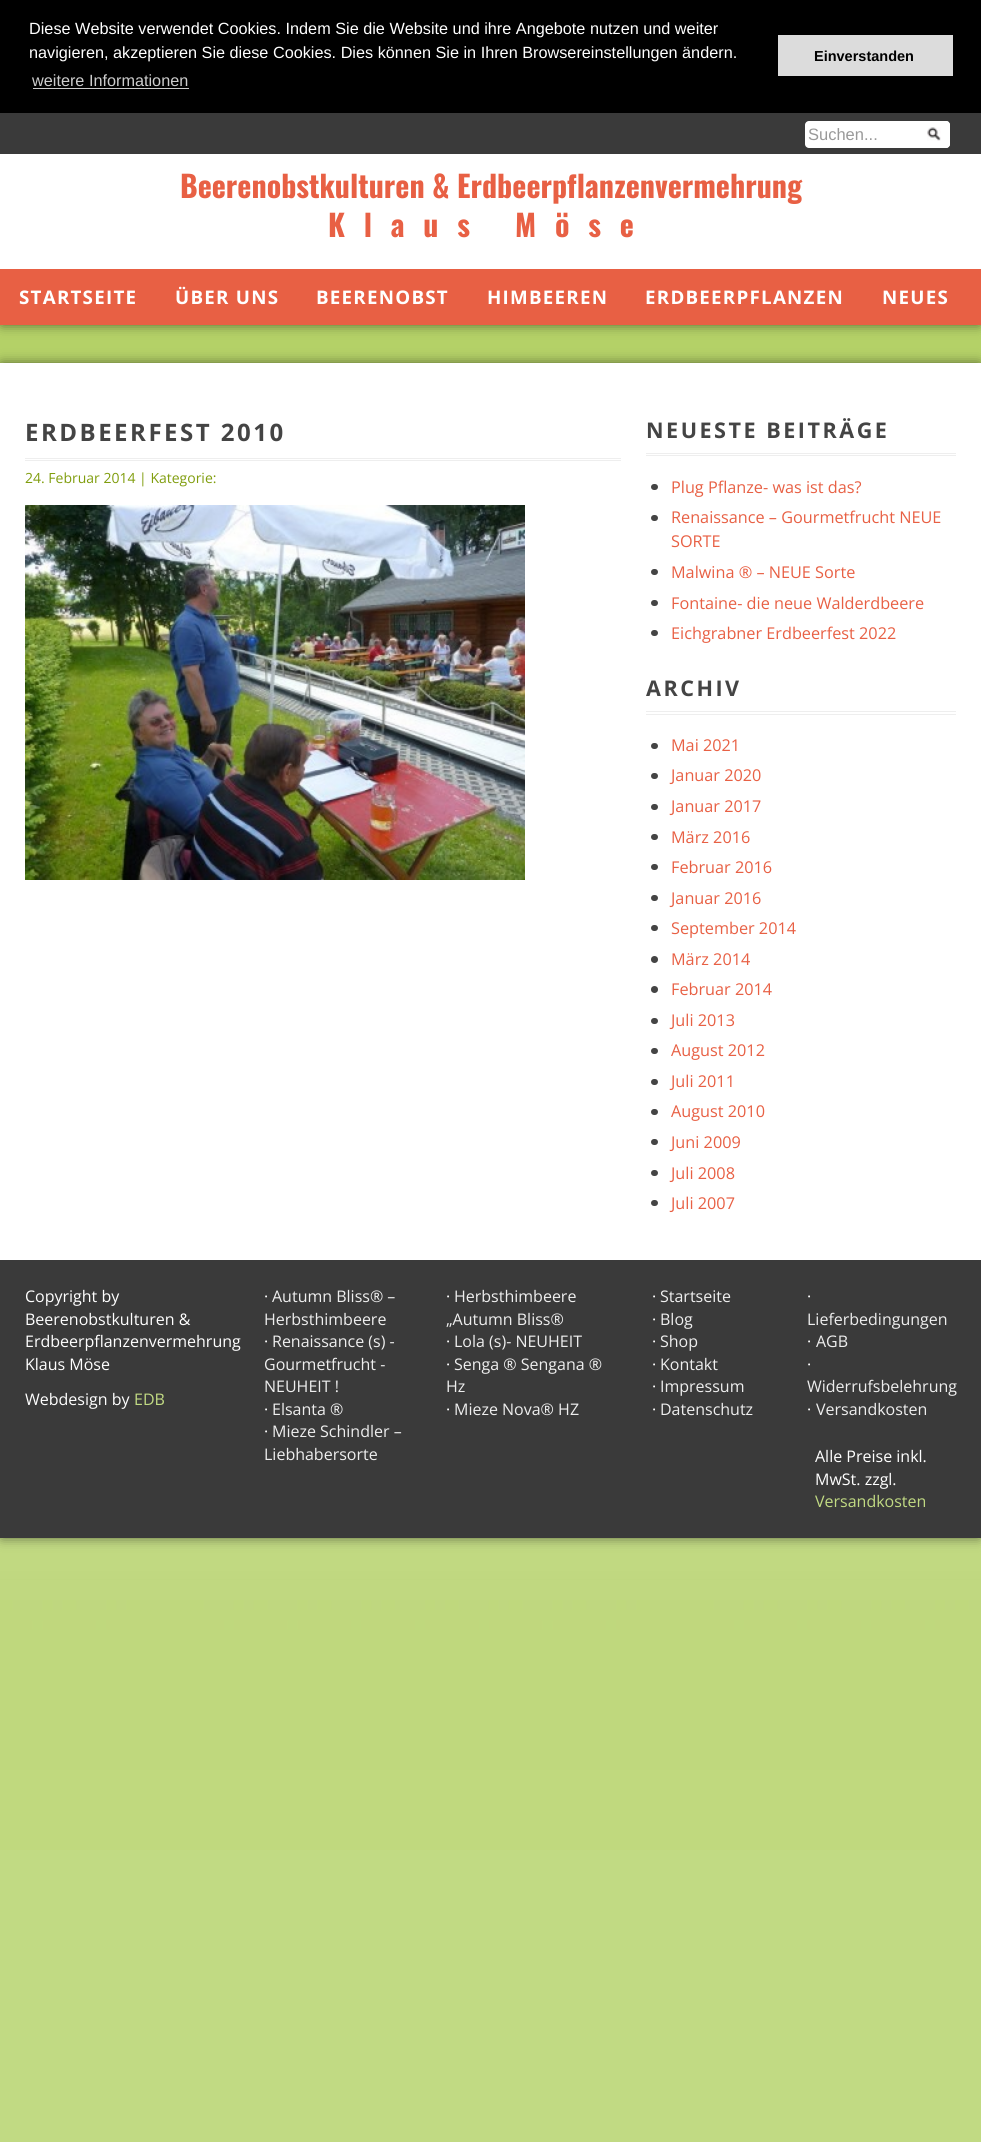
#include <cairo.h>
#include <math.h>
#include <stddef.h>

typedef struct { const char *family; double size; int italic, bold; unsigned color; } style_t;
static cairo_t *ctx;

static void ink(unsigned color) {
    cairo_set_source_rgb(ctx, (color >> 16) / 255.0, (color >> 8 & 255) / 255.0, (color & 255) / 255.0);
}

static void write(double x, double y, const char *s, const style_t *st) {
    cairo_select_font_face(ctx, st->family, st->italic ? CAIRO_FONT_SLANT_ITALIC : CAIRO_FONT_SLANT_NORMAL,
        st->bold ? CAIRO_FONT_WEIGHT_BOLD : CAIRO_FONT_WEIGHT_NORMAL);
    cairo_set_font_size(ctx, st->size);
    ink(st->color);
    cairo_move_to(ctx, x, y);
    cairo_show_text(ctx, s);
}

static void write_spaced(double x, double y, const char *s, double letter, double word) {
    cairo_move_to(ctx, x, y);
    while (*s) {
        char ch[5] = {0};
        int n = 0;
        do ch[n++] = *s++; while ((*s & 0xC0) == 0x80);
        cairo_show_text(ctx, ch);
        cairo_rel_move_to(ctx, letter + word * (*ch == ' '), 0);
    }
}

static void block(double x, double y, double w, double h, unsigned color) {
    ink(color);
    cairo_rectangle(ctx, x, y, w, h);
    cairo_fill(ctx);
}

static void round_path(double x, double y, double w, double h, double r) {
    cairo_new_sub_path(ctx);
    cairo_arc(ctx, x + w - r, y + h - r, r, 0, M_PI / 2);
    cairo_arc(ctx, x + r, y + h - r, r, M_PI / 2, M_PI);
    cairo_arc(ctx, x + r, y + r, r, M_PI, 1.5 * M_PI);
    cairo_arc(ctx, x + w - r, y + r, r, 1.5 * M_PI, 2 * M_PI);
    cairo_close_path(ctx);
}

static void blur_box(double x, double y, double w, double h, double r, double blur, double alpha) {
    cairo_push_group_with_content(ctx, CAIRO_CONTENT_ALPHA);
    cairo_set_operator(ctx, CAIRO_OPERATOR_SOURCE);
    for (int i = 15; i >= -15 && fmin(w, h) + blur * i / 3 > 0; i -= 2) {
        double e = blur * i / 6;
        cairo_set_source_rgba(ctx, 0, 0, 0, alpha * erfc((i - 1) / 8.5) / 2);
        round_path(x - e, y - e, w + 2 * e, h + 2 * e, fmax(0, fmin(r + e + blur * .6, fmin(w, h) / 2 + e)));
        cairo_fill(ctx);
    }
    cairo_pattern_t *soft = cairo_pop_group(ctx);
    cairo_mask(ctx, soft);
    cairo_pattern_destroy(soft);
}

static void paste(const char *path, double x, double y, double w, double h) {
    cairo_surface_t *image = cairo_image_surface_create_from_png(path);
    cairo_save(ctx);
    cairo_set_source_surface(ctx, image, x, y);
    cairo_rectangle(ctx, x, y, w, h);
    cairo_fill(ctx);
    cairo_restore(ctx);
    cairo_surface_destroy(image);
}

static const style_t s1 = {"Liberation Sans", 16.25, 0, 0, 0xffffff};
static const style_t s2 = {"Liberation Sans", 16.25, 0, 0, 0xcccccc};
static const style_t s3 = {"Liberation Sans", 14.5, 0, 1, 0x000000};
static const style_t s4 = {"Liberation Sans", 16.5, 0, 0, 0x999999};
static const style_t s5 = {"Oswald", 30, 0, 1, 0xe86044};
static const style_t s6 = {"Open Sans", 14, 0, 0, 0x809d0d};
static const style_t s7 = {"Open Sans", 16.25, 0, 0, 0xe86044};
static const style_t s8 = {"Open Sans", 16, 0, 0, 0xffffff};
static const style_t s9 = {"Open Sans", 16, 0, 0, 0xc1da83};
static const style_t s10 = {"Open Sans", 16, 0, 0, 0xeeeeee};

int main(void) {
    cairo_surface_t *surface = cairo_image_surface_create(CAIRO_FORMAT_RGB24, 981, 2142);
    ctx = cairo_create(surface);
    cairo_font_options_t *options = cairo_font_options_create();
    cairo_font_options_set_hint_metrics(options, CAIRO_HINT_METRICS_OFF);
    cairo_font_options_set_hint_style(options, CAIRO_HINT_STYLE_NONE);
    cairo_set_font_options(ctx, options);
    cairo_set_miter_limit(ctx, 4);
    ink(0xc1da83);
    cairo_paint(ctx);
    paste("pic1.png", 0, 1538, 981, 312);
    block(0, 325, 981, 38, 0xb4d167);
    ink(0x000000);
    blur_box(0, 113, 981, 212, 2.5, 6, 0.5);
    block(0, 0, 981, 113, 0x000000);
    write(29, 34, "Diese Website verwendet Cookies. Indem Sie die Website und ihre Angebote nutzen und weiter", &s1);
    write(29, 58, "navigieren, akzeptieren Sie diese Cookies. Dies können Sie in Ihren Browsereinstellungen ändern.", &s1);
    write(32, 86, "weitere Informationen", &s2);
    block(33, 88, 156, 1, 0xcccccc);
    block(778, 35, 175, 41, 0xdcdcdc);
    write(814, 61, "Einverstanden", &s3);
    block(0, 154, 981, 115, 0xffffff);
    block(0, 113, 981, 41, 0x3a3a3a);
    ink(0xffffff);
    round_path(805, 121, 145, 27, 4);
    cairo_fill(ctx);
    write(808, 140, "Suchen...", &s4);
    ink(0xffffff);
    round_path(919, 121, 31, 27, 4);
    cairo_fill(ctx);
    paste("pic2.png", 927, 127, 14, 14);
    write(180, 198, "Beerenobstkulturen & Erdbeerpflanzenvermehrung", &s5);
    write_spaced(328, 237, "Klaus Möse", 18.75, 0);
    block(0, 269, 981, 56, 0xe86044);
    cairo_select_font_face(ctx, "Open Sans", CAIRO_FONT_SLANT_NORMAL, CAIRO_FONT_WEIGHT_BOLD);
    cairo_set_font_size(ctx, 18.75);
    ink(0xffffff);
    write_spaced(19, 304, "STARTSEITE", 1.25, 0);
    write_spaced(175, 304, "ÜBER UNS", 1.25, 0);
    write_spaced(316, 304, "BEERENOBST", 1.25, 0);
    write_spaced(487, 304, "HIMBEEREN", 1.25, 0);
    write_spaced(645, 304, "ERDBEERPFLANZEN", 1.25, 0);
    write_spaced(882, 304, "NEUES", 1.25, 0);
    ink(0x000000);
    blur_box(0, 363, 981, 897, 2.5, 6, 0.5);
    blur_box(0, 1260, 981, 278, 2.5, 6, 0.5);
    block(0, 363, 981, 897, 0xffffff);
    block(25, 458, 596, 1, 0xeeeeee);
    block(25, 460, 596, 1, 0xeeeeee);
    cairo_set_font_size(ctx, 24);
    ink(0x444444);
    write_spaced(25, 441, "ERDBEERFEST 2010", 2.5, 0);
    write(25, 483, "24. Februar 2014 | Kategorie:", &s6);
    paste("pic3.png", 25, 505, 500, 375);
    block(646, 453, 310, 1, 0xeeeeee);
    block(646, 455, 310, 1, 0xeeeeee);
    cairo_select_font_face(ctx, "Open Sans", CAIRO_FONT_SLANT_NORMAL, CAIRO_FONT_WEIGHT_BOLD);
    cairo_set_font_size(ctx, 21.6);
    ink(0x444444);
    write_spaced(646, 438, "NEUESTE BEITRÄGE", 2.5, 0);
    round_path(651, 484, 7, 6, 3);
    cairo_fill(ctx);
    write(671, 493, "Plug Pflanze- was ist das?", &s7);
    ink(0x444444);
    round_path(651, 515, 7, 6, 3);
    cairo_fill(ctx);
    write(671, 523, "Renaissance – Gourmetfrucht NEUE", &s7);
    write(671, 547, "SORTE", &s7);
    ink(0x444444);
    round_path(651, 569, 7, 6, 3);
    cairo_fill(ctx);
    write(671, 578, "Malwina ® – NEUE Sorte", &s7);
    ink(0x444444);
    round_path(651, 600, 7, 6, 3);
    cairo_fill(ctx);
    write(671, 609, "Fontaine- die neue Walderdbeere", &s7);
    ink(0x444444);
    round_path(651, 630, 7, 6, 3);
    cairo_fill(ctx);
    write(671, 639, "Eichgrabner Erdbeerfest 2022", &s7);
    block(646, 711, 310, 1, 0xeeeeee);
    block(646, 714, 310, 1, 0xeeeeee);
    cairo_select_font_face(ctx, "Open Sans", CAIRO_FONT_SLANT_NORMAL, CAIRO_FONT_WEIGHT_BOLD);
    cairo_set_font_size(ctx, 21.6);
    ink(0x444444);
    write_spaced(646, 696, "ARCHIV", 2.5, 0);
    round_path(651, 743, 7, 6, 3);
    cairo_fill(ctx);
    write(671, 751, "Mai 2021", &s7);
    ink(0x444444);
    round_path(651, 773, 7, 6, 3);
    cairo_fill(ctx);
    write(671, 781, "Januar 2020", &s7);
    ink(0x444444);
    round_path(651, 804, 7, 6, 3);
    cairo_fill(ctx);
    write(671, 812, "Januar 2017", &s7);
    ink(0x444444);
    round_path(651, 834, 7, 6, 3);
    cairo_fill(ctx);
    write(671, 843, "März 2016", &s7);
    ink(0x444444);
    round_path(651, 864, 7, 6, 3);
    cairo_fill(ctx);
    write(671, 873, "Februar 2016", &s7);
    ink(0x444444);
    round_path(651, 895, 7, 6, 3);
    cairo_fill(ctx);
    write(671, 904, "Januar 2016", &s7);
    ink(0x444444);
    round_path(651, 925, 7, 6, 3);
    cairo_fill(ctx);
    write(671, 934, "September 2014", &s7);
    ink(0x444444);
    cairo_new_path(ctx);
    cairo_arc(ctx, 654.5, 959.5, 3.5, 0, 2 * M_PI);
    cairo_fill(ctx);
    write(671, 965, "März 2014", &s7);
    ink(0x444444);
    cairo_new_path(ctx);
    cairo_arc(ctx, 654.5, 989.5, 3.5, 0, 2 * M_PI);
    cairo_fill(ctx);
    write(671, 995, "Februar 2014", &s7);
    ink(0x444444);
    round_path(651, 1018, 7, 6, 3);
    cairo_fill(ctx);
    write(671, 1026, "Juli 2013", &s7);
    ink(0x444444);
    round_path(651, 1048, 7, 6, 3);
    cairo_fill(ctx);
    write(671, 1056, "August 2012", &s7);
    ink(0x444444);
    round_path(651, 1079, 7, 6, 3);
    cairo_fill(ctx);
    write(671, 1087, "Juli 2011", &s7);
    ink(0x444444);
    round_path(651, 1109, 7, 6, 3);
    cairo_fill(ctx);
    write(671, 1117, "August 2010", &s7);
    ink(0x444444);
    round_path(651, 1139, 7, 6, 3);
    cairo_fill(ctx);
    write(671, 1148, "Juni 2009", &s7);
    ink(0x444444);
    round_path(651, 1170, 7, 6, 3);
    cairo_fill(ctx);
    write(671, 1179, "Juli 2008", &s7);
    ink(0x444444);
    round_path(651, 1200, 7, 6, 3);
    cairo_fill(ctx);
    write(671, 1209, "Juli 2007", &s7);
    block(0, 1260, 981, 278, 0x3a3a3a);
    write(25, 1302, "Copyright by", &s8);
    write(25, 1325, "Beerenobstkulturen &", &s8);
    write(25, 1347, "Erdbeerpflanzenvermehrung", &s8);
    write(25, 1370, "Klaus Möse", &s8);
    write(25, 1405, "Webdesign by", &s8);
    write(134, 1405, "EDB", &s9);
    write(264, 1302, "·", &s8);
    write(272, 1302, "Autumn Bliss® –", &s10);
    write(264, 1325, "Herbsthimbeere", &s10);
    write(446, 1302, "·", &s8);
    write(454, 1302, "Herbsthimbeere", &s10);
    write(446, 1325, "„Autumn Bliss®", &s10);
    write(264, 1347, "·", &s8);
    write(272, 1347, "Renaissance (s) -", &s10);
    write(264, 1370, "Gourmetfrucht -", &s10);
    write(264, 1392, "NEUHEIT !", &s10);
    write(446, 1347, "·", &s8);
    write(454, 1347, "Lola (s)- NEUHEIT", &s10);
    write(446, 1370, "·", &s8);
    write(454, 1370, "Senga ® Sengana ®", &s10);
    write(446, 1392, "Hz", &s10);
    write(264, 1415, "·", &s8);
    write(272, 1415, "Elsanta ®", &s10);
    write(446, 1415, "·", &s8);
    write(454, 1415, "Mieze Nova® HZ", &s10);
    write(264, 1437, "·", &s8);
    write(272, 1437, "Mieze Schindler –", &s10);
    write(264, 1460, "Liebhabersorte", &s10);
    write(652, 1302, "·", &s8);
    write(660, 1302, "Startseite", &s10);
    write(652, 1325, "·", &s8);
    write(660, 1325, "Blog", &s10);
    write(652, 1347, "·", &s8);
    write(660, 1347, "Shop", &s10);
    write(652, 1370, "·", &s8);
    write(660, 1370, "Kontakt", &s10);
    write(652, 1392, "·", &s8);
    write(660, 1392, "Impressum", &s10);
    write(652, 1415, "·", &s8);
    write(660, 1415, "Datenschutz", &s10);
    write(807, 1302, "·", &s8);
    write(807, 1325, "Lieferbedingungen", &s10);
    write(807, 1347, "·", &s8);
    write(816, 1347, "AGB", &s10);
    write(807, 1370, "·", &s8);
    write(807, 1392, "Widerrufsbelehrung", &s10);
    write(807, 1415, "·", &s8);
    write(816, 1415, "Versandkosten", &s10);
    write(815, 1462, "Alle Preise inkl.", &s8);
    write(815, 1485, "MwSt. zzgl.", &s8);
    write(815, 1507, "Versandkosten", &s9);
    cairo_surface_write_to_png(surface, "screenshot.png");
    cairo_font_options_destroy(options);
    cairo_destroy(ctx);
    cairo_surface_destroy(surface);
    return 0;
}
